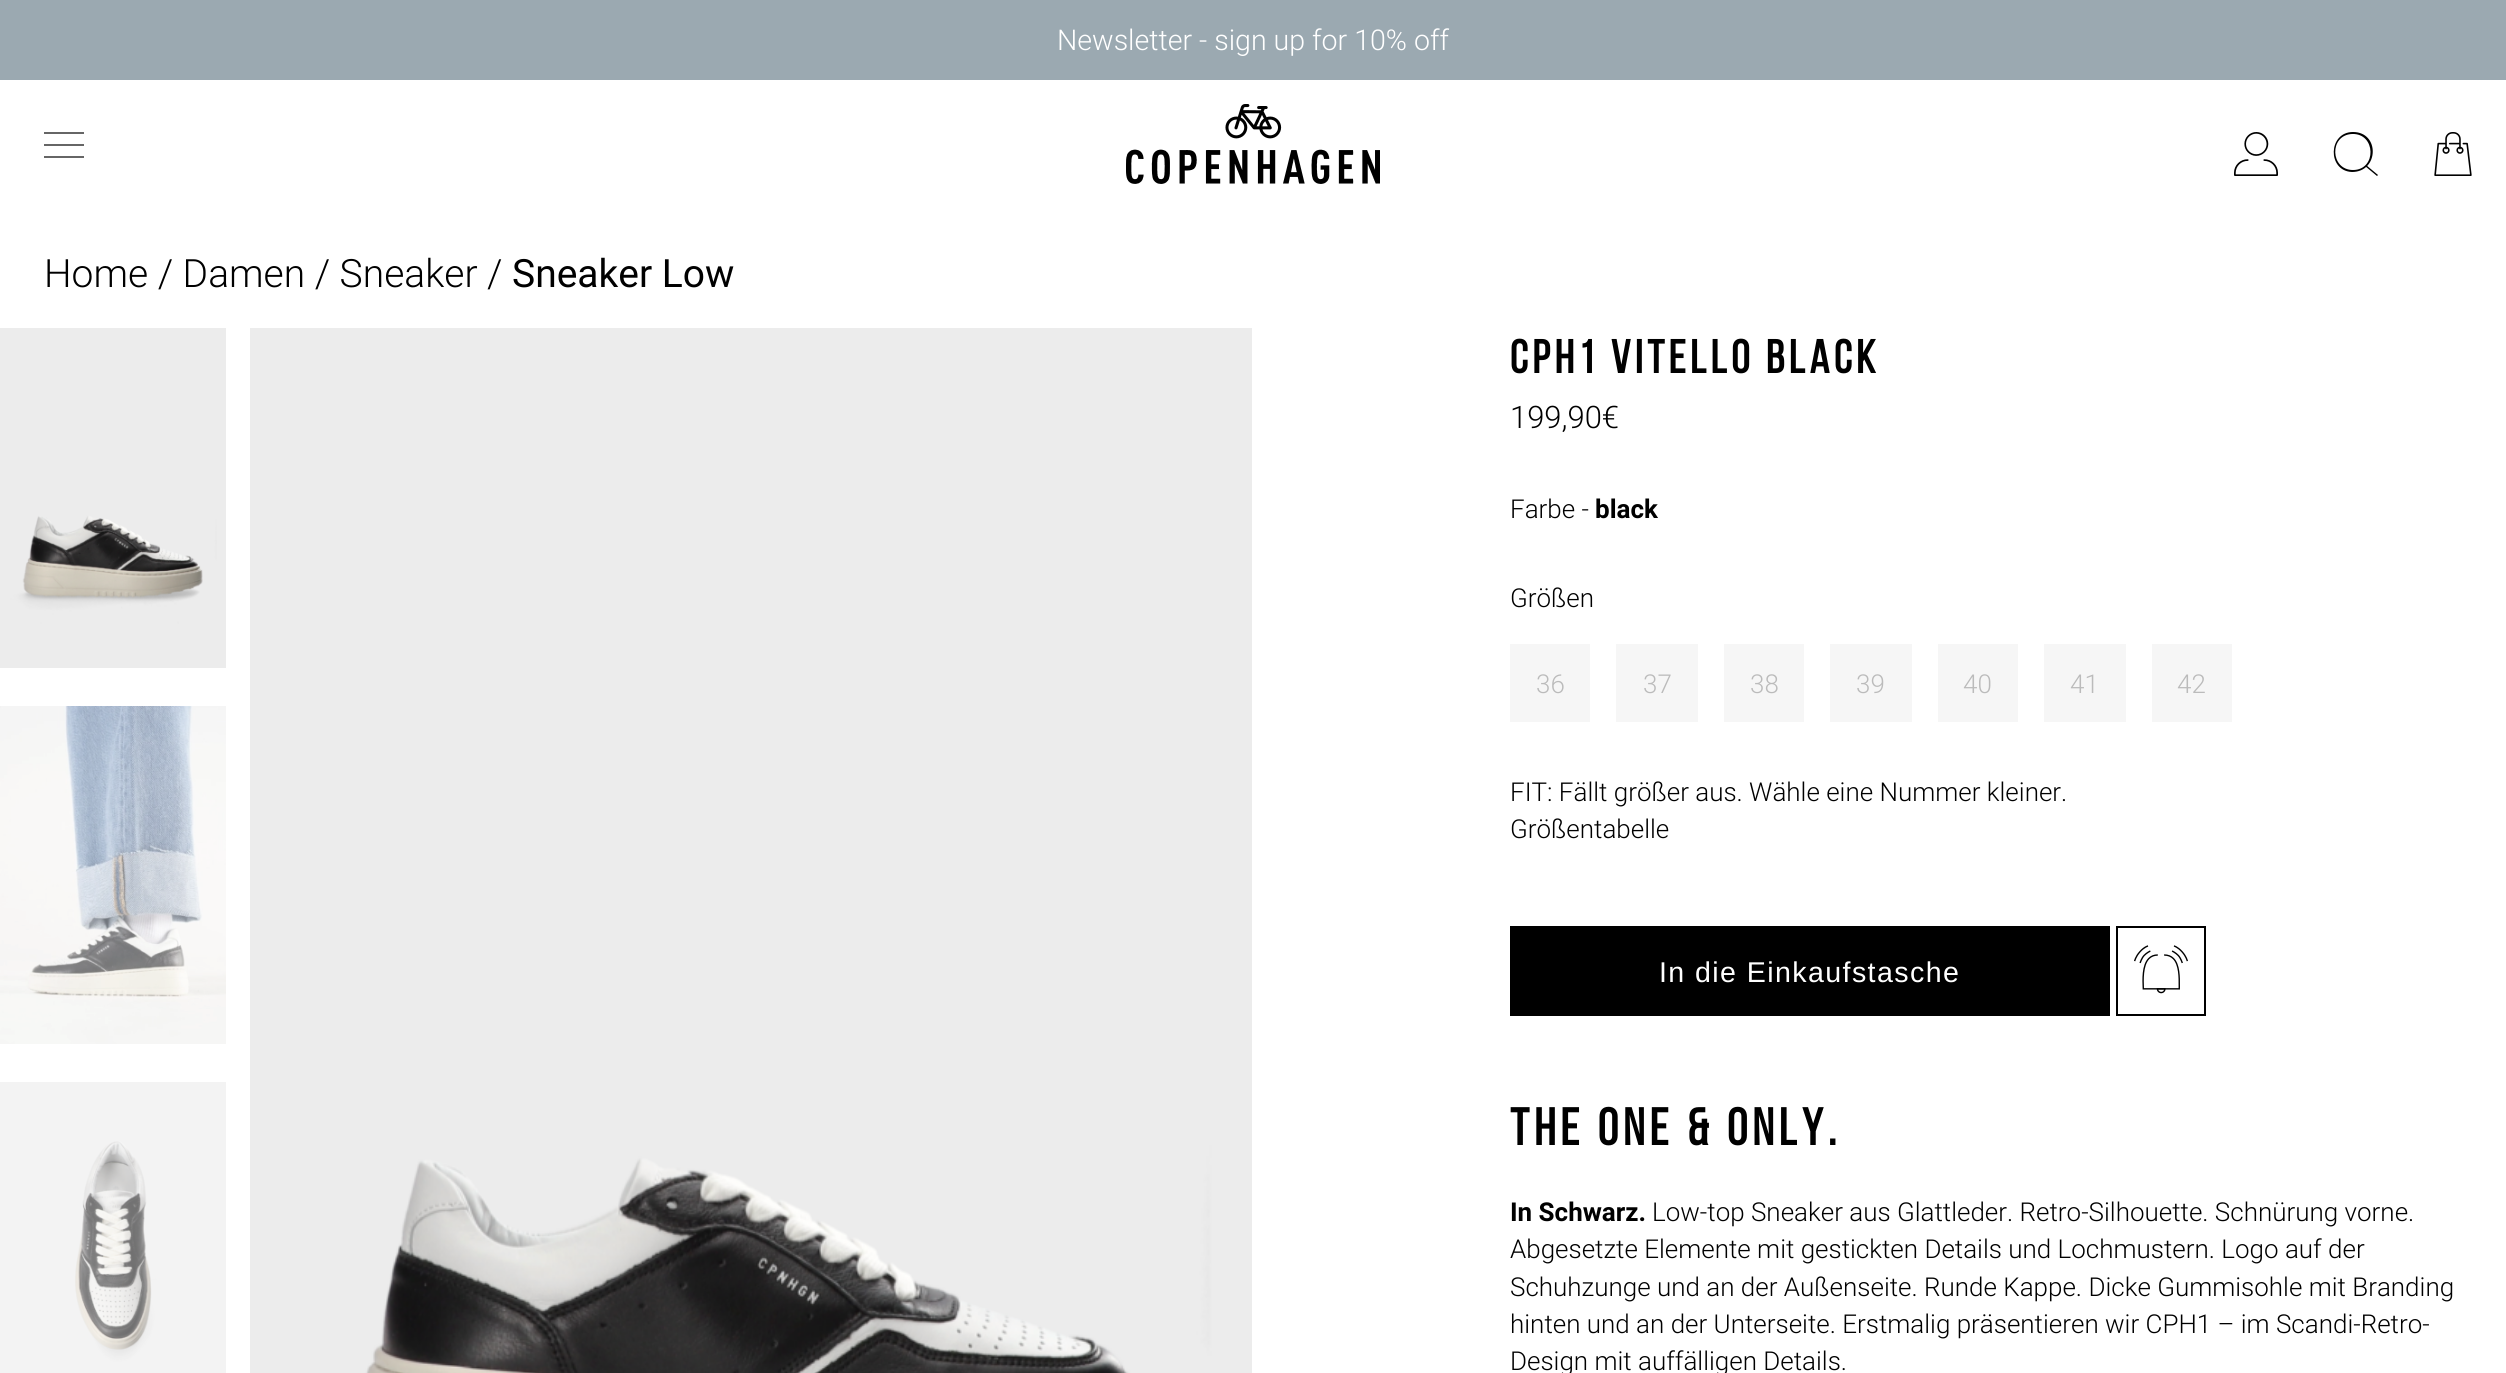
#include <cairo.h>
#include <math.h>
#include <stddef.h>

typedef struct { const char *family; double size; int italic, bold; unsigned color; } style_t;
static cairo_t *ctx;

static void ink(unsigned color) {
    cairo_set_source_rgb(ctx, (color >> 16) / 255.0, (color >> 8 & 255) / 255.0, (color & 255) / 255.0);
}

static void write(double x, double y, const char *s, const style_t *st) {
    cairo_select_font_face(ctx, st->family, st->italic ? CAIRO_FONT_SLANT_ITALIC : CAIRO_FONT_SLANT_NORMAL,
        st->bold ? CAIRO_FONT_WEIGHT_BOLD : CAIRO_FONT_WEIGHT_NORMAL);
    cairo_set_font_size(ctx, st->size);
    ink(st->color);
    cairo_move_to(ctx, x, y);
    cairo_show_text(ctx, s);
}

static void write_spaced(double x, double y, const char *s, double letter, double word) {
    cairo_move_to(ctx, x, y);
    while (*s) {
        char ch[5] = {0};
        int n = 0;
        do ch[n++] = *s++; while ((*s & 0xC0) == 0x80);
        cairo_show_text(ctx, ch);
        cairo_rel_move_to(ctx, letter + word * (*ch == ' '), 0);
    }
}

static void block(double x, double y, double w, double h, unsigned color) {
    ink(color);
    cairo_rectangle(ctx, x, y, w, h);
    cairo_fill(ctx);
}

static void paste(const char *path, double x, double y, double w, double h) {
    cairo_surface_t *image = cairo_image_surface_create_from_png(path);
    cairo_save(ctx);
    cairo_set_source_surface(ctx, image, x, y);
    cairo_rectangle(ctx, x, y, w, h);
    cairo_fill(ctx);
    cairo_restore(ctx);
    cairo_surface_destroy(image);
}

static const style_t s1 = {"Roboto Light", 28.6, 0, 0, 0xffffff};
static const style_t s2 = {"Roboto Light", 39, 0, 0, 0x000000};
static const style_t s3 = {"Roboto", 39, 0, 0, 0x000000};
static const style_t s4 = {"Roboto Light", 31, 0, 0, 0x000000};
static const style_t s5 = {"Roboto Light", 26, 0, 0, 0x000000};
static const style_t s6 = {"Roboto", 26, 0, 1, 0x000000};
static const style_t s7 = {"Roboto Light", 26, 0, 0, 0xbbbbbb};

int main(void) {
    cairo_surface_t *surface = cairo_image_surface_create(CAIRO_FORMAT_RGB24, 2506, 1373);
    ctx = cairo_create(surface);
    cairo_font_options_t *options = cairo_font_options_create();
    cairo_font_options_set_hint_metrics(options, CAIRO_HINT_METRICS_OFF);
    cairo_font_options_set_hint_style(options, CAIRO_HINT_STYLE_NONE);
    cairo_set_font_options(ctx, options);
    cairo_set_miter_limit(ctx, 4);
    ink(0xffffff);
    cairo_paint(ctx);
    block(0, 0, 2506, 80, 0x9ba9b1);
    write(1057, 50, "Newsletter - sign up for 10% off", &s1);
    block(44, 132, 40, 2, 0x666666);
    block(44, 144, 40, 2, 0x666666);
    block(44, 156, 40, 2, 0x666666);
    paste("pic1.png", 1126, 104, 254, 80);
    paste("pic2.png", 2234, 132, 44, 44);
    ink(0x000000);
    cairo_new_path(ctx);
    cairo_move_to(ctx, 2352, 172);
    cairo_curve_to(ctx, 2327, 171, 2328, 132, 2353, 132);
    cairo_curve_to(ctx, 2380, 132, 2379, 172, 2352, 172);
    cairo_close_path(ctx);
    cairo_move_to(ctx, 2352, 134);
    cairo_curve_to(ctx, 2329, 135, 2330, 170, 2353, 170);
    cairo_curve_to(ctx, 2377, 170, 2376, 133, 2352, 134);
    cairo_close_path(ctx);
    cairo_move_to(ctx, 2377, 176);
    cairo_line_to(ctx, 2365, 166);
    cairo_line_to(ctx, 2366, 165);
    cairo_line_to(ctx, 2378, 175);
    cairo_close_path(ctx);
    cairo_fill(ctx);
    paste("pic3.png", 2434, 132, 38, 44);
    write(44, 287, "Home / Damen / Sneaker /", &s2);
    write(512, 287, "Sneaker Low", &s3);
    paste("pic4.png", 0, 328, 226, 340);
    paste("pic5.png", 0, 706, 226, 338);
    paste("pic6.png", 0, 1082, 226, 291);
    paste("pic7.png", 250, 328, 1002, 1045);
    cairo_select_font_face(ctx, "Bebas Neue", CAIRO_FONT_SLANT_NORMAL, CAIRO_FONT_WEIGHT_BOLD);
    cairo_set_font_size(ctx, 46.75);
    write_spaced(1510, 373, "CPH1 vitello black", 4.7, 0);
    write(1510, 428, "199,90€", &s4);
    write(1510, 518, "Farbe -", &s5);
    write(1595, 518, "black", &s6);
    write(1510, 607, "Größen", &s5);
    block(1510, 644, 80, 78, 0xf6f6f6);
    write(1536, 693, "36", &s7);
    block(1616, 644, 82, 78, 0xf6f6f6);
    write(1643, 693, "37", &s7);
    block(1724, 644, 80, 78, 0xf6f6f6);
    write(1750, 693, "38", &s7);
    block(1830, 644, 82, 78, 0xf6f6f6);
    write(1856, 693, "39", &s7);
    block(1938, 644, 80, 78, 0xf6f6f6);
    write(1963, 693, "40", &s7);
    block(2044, 644, 82, 78, 0xf6f6f6);
    write(2070, 693, "41", &s7);
    block(2152, 644, 80, 78, 0xf6f6f6);
    write(2177, 693, "42", &s7);
    write(1510, 801, "FIT: Fällt größer aus. Wähle eine Nummer kleiner.", &s5);
    write(1510, 838, "Größentabelle", &s5);
    block(1510, 926, 600, 90, 0x000000);
    cairo_select_font_face(ctx, "Liberation Sans", CAIRO_FONT_SLANT_NORMAL, CAIRO_FONT_WEIGHT_NORMAL);
    cairo_set_font_size(ctx, 28.6);
    ink(0xffffff);
    write_spaced(1659, 982, "In die Einkaufstasche", 1.4, 0);
    cairo_rectangle(ctx, 2117, 927, 88, 88);
    ink(0x000000);
    cairo_stroke(ctx);
    paste("pic8.png", 2134, 945, 54, 49);
    cairo_select_font_face(ctx, "Bebas Neue", CAIRO_FONT_SLANT_NORMAL, CAIRO_FONT_WEIGHT_BOLD);
    cairo_set_font_size(ctx, 52);
    write_spaced(1510, 1145, "THE ONE & ONLY.", 5.25, 0);
    write(1510, 1221, "In Schwarz.", &s6);
    write(1652, 1221, "Low-top Sneaker aus Glattleder. Retro-Silhouette. Schnürung vorne.", &s5);
    write(1510, 1258, "Abgesetzte Elemente mit gestickten Details und Lochmustern. Logo auf der", &s5);
    write(1510, 1296, "Schuhzunge und an der Außenseite. Runde Kappe. Dicke Gummisohle mit Branding", &s5);
    write(1510, 1333, "hinten und an der Unterseite. Erstmalig präsentieren wir CPH1 – im Scandi-Retro-", &s5);
    write(1510, 1370, "Design mit auffälligen Details.", &s5);
    cairo_surface_write_to_png(surface, "screenshot.png");
    cairo_font_options_destroy(options);
    cairo_destroy(ctx);
    cairo_surface_destroy(surface);
    return 0;
}
